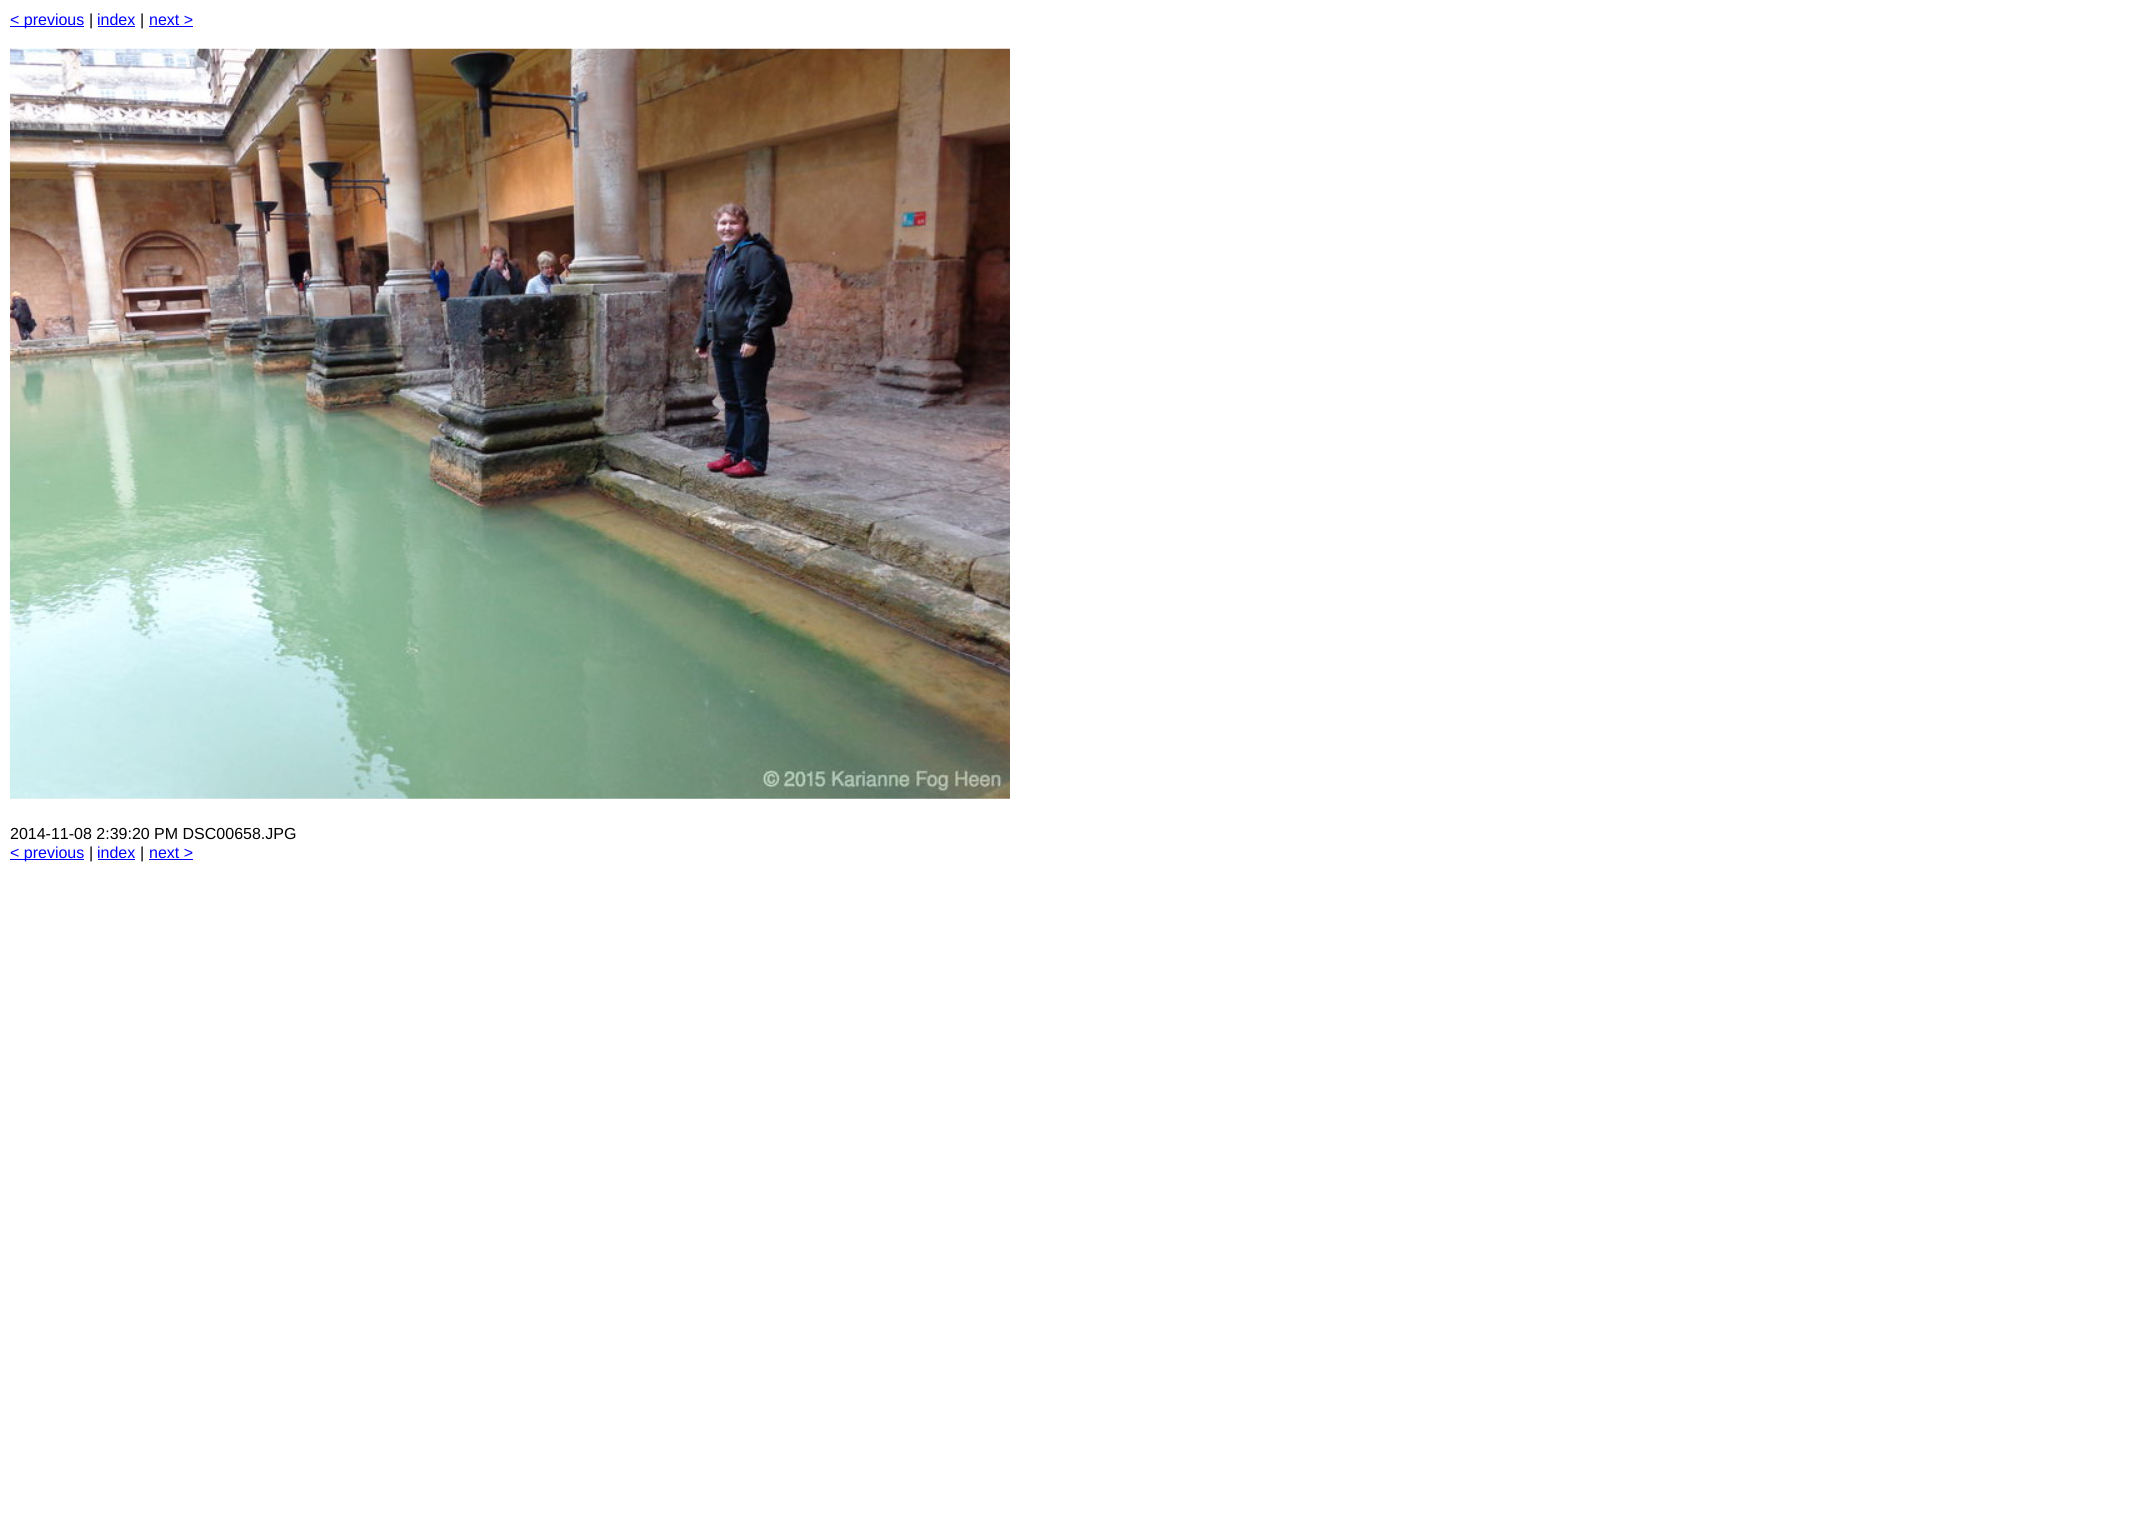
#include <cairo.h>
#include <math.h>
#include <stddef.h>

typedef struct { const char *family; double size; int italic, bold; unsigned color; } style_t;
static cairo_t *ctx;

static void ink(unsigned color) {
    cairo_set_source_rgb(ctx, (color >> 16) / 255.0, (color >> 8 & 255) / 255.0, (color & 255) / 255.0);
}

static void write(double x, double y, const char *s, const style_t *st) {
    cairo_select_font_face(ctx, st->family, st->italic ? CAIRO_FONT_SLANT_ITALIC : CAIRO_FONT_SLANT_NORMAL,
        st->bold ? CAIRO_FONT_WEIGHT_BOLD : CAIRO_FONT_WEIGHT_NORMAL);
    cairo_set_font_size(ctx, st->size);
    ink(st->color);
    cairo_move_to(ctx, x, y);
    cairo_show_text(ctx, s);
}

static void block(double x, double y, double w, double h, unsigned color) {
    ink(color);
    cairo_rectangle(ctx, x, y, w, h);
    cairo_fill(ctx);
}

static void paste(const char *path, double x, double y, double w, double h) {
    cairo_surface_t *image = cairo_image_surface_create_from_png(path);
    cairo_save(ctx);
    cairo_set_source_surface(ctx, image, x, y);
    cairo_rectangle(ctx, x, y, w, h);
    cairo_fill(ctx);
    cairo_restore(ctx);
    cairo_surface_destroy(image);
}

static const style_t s1 = {"Liberation Sans", 16, 0, 0, 0x0000ff};
static const style_t s2 = {"Liberation Sans", 16, 0, 0, 0x000000};

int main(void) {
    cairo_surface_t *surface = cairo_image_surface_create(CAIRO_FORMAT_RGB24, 2133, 1529);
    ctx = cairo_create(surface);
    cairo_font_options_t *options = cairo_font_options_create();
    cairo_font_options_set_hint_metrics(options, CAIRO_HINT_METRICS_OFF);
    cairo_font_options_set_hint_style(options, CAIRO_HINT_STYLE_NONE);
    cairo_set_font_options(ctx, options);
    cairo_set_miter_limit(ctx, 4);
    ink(0xffffff);
    cairo_paint(ctx);
    block(10, 26, 74, 1, 0x0000ff);
    write(10, 25, "< previous", &s1);
    write(89, 25, "|", &s2);
    write(97, 25, "index", &s1);
    block(98, 26, 37, 1, 0x0000ff);
    write(140, 25, "|", &s2);
    write(149, 25, "next >", &s1);
    block(149, 26, 44, 1, 0x0000ff);
    paste("pic1.png", 10, 48, 1000, 751);
    write(10, 839, "2014-11-08 2:39:20 PM DSC00658.JPG", &s2);
    block(10, 859, 74, 1, 0x0000ff);
    write(10, 858, "< previous", &s1);
    write(89, 858, "|", &s2);
    write(97, 858, "index", &s1);
    block(98, 859, 37, 1, 0x0000ff);
    write(140, 858, "|", &s2);
    write(149, 858, "next >", &s1);
    block(149, 859, 44, 1, 0x0000ff);
    cairo_surface_write_to_png(surface, "screenshot.png");
    cairo_font_options_destroy(options);
    cairo_destroy(ctx);
    cairo_surface_destroy(surface);
    return 0;
}
